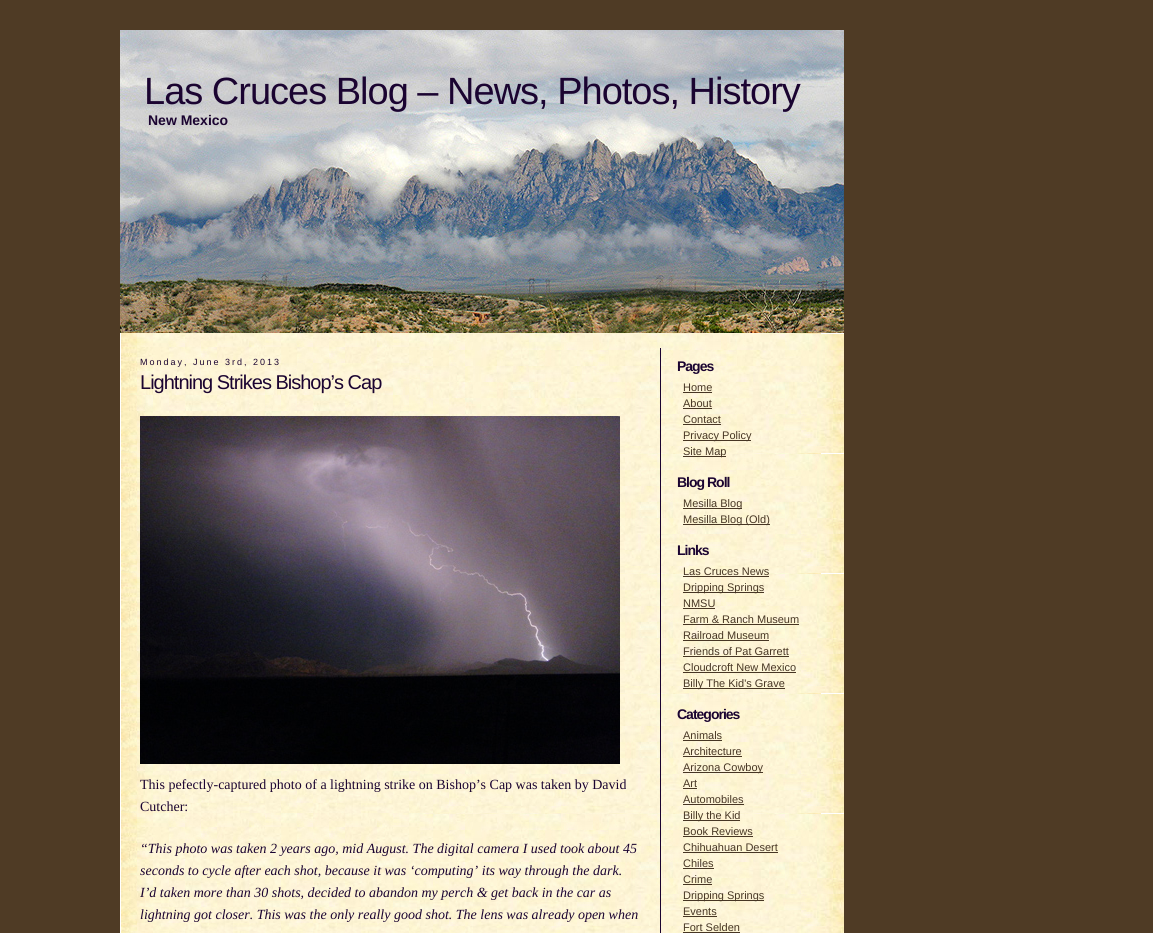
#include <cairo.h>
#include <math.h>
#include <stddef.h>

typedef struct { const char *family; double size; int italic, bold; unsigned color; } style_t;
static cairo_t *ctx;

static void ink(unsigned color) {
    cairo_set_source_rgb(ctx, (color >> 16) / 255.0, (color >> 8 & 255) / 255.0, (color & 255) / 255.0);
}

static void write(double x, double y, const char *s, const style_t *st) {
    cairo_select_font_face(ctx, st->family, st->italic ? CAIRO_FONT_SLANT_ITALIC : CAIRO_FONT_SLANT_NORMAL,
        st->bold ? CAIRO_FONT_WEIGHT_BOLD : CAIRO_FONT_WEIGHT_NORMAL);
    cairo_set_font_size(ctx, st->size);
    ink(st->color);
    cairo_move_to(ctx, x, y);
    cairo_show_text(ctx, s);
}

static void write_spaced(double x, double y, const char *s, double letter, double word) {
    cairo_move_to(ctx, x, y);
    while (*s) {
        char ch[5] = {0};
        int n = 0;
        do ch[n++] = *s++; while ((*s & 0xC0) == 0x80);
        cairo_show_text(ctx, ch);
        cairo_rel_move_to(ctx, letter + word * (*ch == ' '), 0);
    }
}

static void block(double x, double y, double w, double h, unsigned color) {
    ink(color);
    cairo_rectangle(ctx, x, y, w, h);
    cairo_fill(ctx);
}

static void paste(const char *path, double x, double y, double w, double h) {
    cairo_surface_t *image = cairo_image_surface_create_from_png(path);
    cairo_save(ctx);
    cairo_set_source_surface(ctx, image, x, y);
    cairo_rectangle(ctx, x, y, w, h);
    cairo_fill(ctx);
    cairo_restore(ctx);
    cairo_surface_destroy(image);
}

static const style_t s1 = {"Liberation Sans", 14, 0, 1, 0x1b0431};
static const style_t s2 = {"Liberation Serif", 14, 0, 0, 0x1b0431};
static const style_t s3 = {"Liberation Serif", 14, 1, 0, 0x1b0431};
static const style_t s4 = {"Liberation Sans", 11, 0, 0, 0x473624};

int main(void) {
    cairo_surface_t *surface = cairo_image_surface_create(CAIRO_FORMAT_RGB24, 1153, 933);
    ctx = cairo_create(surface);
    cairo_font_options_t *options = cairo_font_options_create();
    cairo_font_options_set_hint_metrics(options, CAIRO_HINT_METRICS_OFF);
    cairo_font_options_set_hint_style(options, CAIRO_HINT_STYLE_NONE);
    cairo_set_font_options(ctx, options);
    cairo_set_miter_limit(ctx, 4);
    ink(0x4f3b25);
    cairo_paint(ctx);
    paste("pic1.png", 120, 30, 724, 303);
    cairo_select_font_face(ctx, "Liberation Sans", CAIRO_FONT_SLANT_NORMAL, CAIRO_FONT_WEIGHT_NORMAL);
    cairo_set_font_size(ctx, 38);
    ink(0x1b0431);
    write_spaced(144, 104, "Las Cruces Blog – News, Photos, History", -1, 0);
    write(148, 125, "New Mexico", &s1);
    paste("pic2.png", 120, 333, 724, 600);
    block(660, 348, 1, 585, 0x1b0431);
    cairo_select_font_face(ctx, "Liberation Sans", CAIRO_FONT_SLANT_NORMAL, CAIRO_FONT_WEIGHT_NORMAL);
    cairo_set_font_size(ctx, 9);
    write_spaced(140, 365, "Monday, June 3rd, 2013", 2, 0);
    cairo_set_font_size(ctx, 20);
    write_spaced(140, 389, "Lightning Strikes Bishop’s Cap", -1, 0);
    paste("pic3.png", 140, 416, 480, 348);
    write(140, 789, "This pefectly-captured photo of a lightning strike on Bishop’s Cap was taken by David", &s2);
    write(140, 811, "Cutcher:", &s2);
    write(140, 853, "“This photo was taken 2 years ago, mid August. The digital camera I used took about 45", &s3);
    write(140, 875, "seconds to cycle after each shot, because it was ‘computing’ its way through the dark.", &s3);
    write(140, 897, "I’d taken more than 30 shots, decided to abandon my perch & get back in the car as", &s3);
    write(140, 919, "lightning got closer. This was the only really good shot. The lens was already open when", &s3);
    cairo_select_font_face(ctx, "Liberation Sans", CAIRO_FONT_SLANT_NORMAL, CAIRO_FONT_WEIGHT_BOLD);
    write_spaced(677, 371, "Pages", -1, 0);
    write(683, 391, "Home", &s4);
    block(683, 392, 29, 1, 0x473624);
    write(683, 407, "About", &s4);
    block(683, 408, 29, 1, 0x473624);
    write(683, 423, "Contact", &s4);
    block(683, 424, 38, 1, 0x473624);
    block(683, 440, 68, 1, 0x473624);
    write(683, 439, "Privacy Policy", &s4);
    block(683, 456, 43, 1, 0x473624);
    write(683, 455, "Site Map", &s4);
    cairo_select_font_face(ctx, "Liberation Sans", CAIRO_FONT_SLANT_NORMAL, CAIRO_FONT_WEIGHT_BOLD);
    cairo_set_font_size(ctx, 14);
    ink(0x1b0431);
    write_spaced(677, 487, "Blog Roll", -1, 0);
    block(683, 508, 59, 1, 0x473624);
    write(683, 507, "Mesilla Blog", &s4);
    block(683, 524, 87, 1, 0x473624);
    write(683, 523, "Mesilla Blog (Old)", &s4);
    cairo_select_font_face(ctx, "Liberation Sans", CAIRO_FONT_SLANT_NORMAL, CAIRO_FONT_WEIGHT_BOLD);
    cairo_set_font_size(ctx, 14);
    ink(0x1b0431);
    write_spaced(677, 555, "Links", -1, 0);
    write(683, 575, "Las Cruces News", &s4);
    block(683, 576, 86, 1, 0x473624);
    block(683, 592, 81, 1, 0x473624);
    write(683, 591, "Dripping Springs", &s4);
    write(683, 607, "NMSU", &s4);
    block(683, 608, 32, 1, 0x473624);
    write(683, 623, "Farm & Ranch Museum", &s4);
    block(683, 624, 116, 1, 0x473624);
    write(683, 639, "Railroad Museum", &s4);
    block(683, 640, 86, 1, 0x473624);
    write(683, 655, "Friends of Pat Garrett", &s4);
    block(683, 656, 106, 1, 0x473624);
    write(683, 671, "Cloudcroft New Mexico", &s4);
    block(683, 672, 113, 1, 0x473624);
    block(683, 688, 102, 1, 0x473624);
    write(683, 687, "Billy The Kid's Grave", &s4);
    cairo_select_font_face(ctx, "Liberation Sans", CAIRO_FONT_SLANT_NORMAL, CAIRO_FONT_WEIGHT_BOLD);
    cairo_set_font_size(ctx, 14);
    ink(0x1b0431);
    write_spaced(677, 719, "Categories", -1, 0);
    write(683, 739, "Animals", &s4);
    block(683, 740, 39, 1, 0x473624);
    write(683, 755, "Architecture", &s4);
    block(683, 756, 59, 1, 0x473624);
    block(683, 772, 80, 1, 0x473624);
    write(683, 771, "Arizona Cowboy", &s4);
    write(683, 787, "Art", &s4);
    block(683, 788, 14, 1, 0x473624);
    write(683, 803, "Automobiles", &s4);
    block(683, 804, 61, 1, 0x473624);
    block(683, 820, 57, 1, 0x473624);
    write(683, 819, "Billy the Kid", &s4);
    write(683, 835, "Book Reviews", &s4);
    block(683, 836, 70, 1, 0x473624);
    write(683, 851, "Chihuahuan Desert", &s4);
    block(683, 852, 95, 1, 0x473624);
    write(683, 867, "Chiles", &s4);
    block(683, 868, 31, 1, 0x473624);
    write(683, 883, "Crime", &s4);
    block(683, 884, 29, 1, 0x473624);
    block(683, 900, 81, 1, 0x473624);
    write(683, 899, "Dripping Springs", &s4);
    write(683, 915, "Events", &s4);
    block(683, 916, 34, 1, 0x473624);
    write(683, 931, "Fort Selden", &s4);
    block(683, 932, 57, 1, 0x473624);
    cairo_surface_write_to_png(surface, "screenshot.png");
    cairo_font_options_destroy(options);
    cairo_destroy(ctx);
    cairo_surface_destroy(surface);
    return 0;
}
